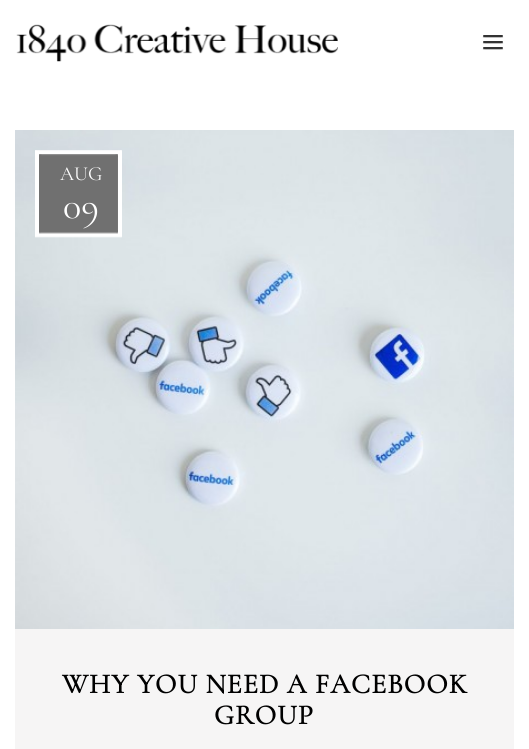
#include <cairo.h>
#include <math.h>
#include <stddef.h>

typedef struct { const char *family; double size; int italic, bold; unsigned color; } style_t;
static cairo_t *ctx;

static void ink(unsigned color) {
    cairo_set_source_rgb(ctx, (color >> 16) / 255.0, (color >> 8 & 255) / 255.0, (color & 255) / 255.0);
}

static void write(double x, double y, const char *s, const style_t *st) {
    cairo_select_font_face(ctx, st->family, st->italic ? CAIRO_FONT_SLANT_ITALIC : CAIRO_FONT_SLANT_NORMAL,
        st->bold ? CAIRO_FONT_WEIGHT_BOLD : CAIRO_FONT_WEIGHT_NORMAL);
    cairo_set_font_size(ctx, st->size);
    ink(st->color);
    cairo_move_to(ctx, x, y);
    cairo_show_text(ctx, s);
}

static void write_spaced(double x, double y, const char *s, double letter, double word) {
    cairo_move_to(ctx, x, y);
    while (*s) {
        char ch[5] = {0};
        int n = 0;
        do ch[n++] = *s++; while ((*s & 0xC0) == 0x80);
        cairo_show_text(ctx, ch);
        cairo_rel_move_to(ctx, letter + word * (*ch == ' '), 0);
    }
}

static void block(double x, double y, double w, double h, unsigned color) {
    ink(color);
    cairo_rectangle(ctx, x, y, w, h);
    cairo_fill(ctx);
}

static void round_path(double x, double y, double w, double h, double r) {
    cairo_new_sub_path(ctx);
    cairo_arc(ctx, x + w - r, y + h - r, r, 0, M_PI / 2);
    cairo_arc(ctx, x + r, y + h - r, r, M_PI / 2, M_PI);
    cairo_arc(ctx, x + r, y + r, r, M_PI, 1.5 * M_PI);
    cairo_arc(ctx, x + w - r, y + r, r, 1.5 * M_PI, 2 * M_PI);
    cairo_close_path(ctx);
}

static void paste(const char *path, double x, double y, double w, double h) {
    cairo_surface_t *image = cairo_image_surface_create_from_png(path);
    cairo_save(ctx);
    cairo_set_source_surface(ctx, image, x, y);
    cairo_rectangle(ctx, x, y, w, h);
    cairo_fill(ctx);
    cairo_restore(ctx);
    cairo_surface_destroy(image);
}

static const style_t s1 = {"Cormorant Garamond Light", 20, 0, 0, 0xffffff};
static const style_t s2 = {"Cormorant Garamond Light", 38, 0, 0, 0xffffff};

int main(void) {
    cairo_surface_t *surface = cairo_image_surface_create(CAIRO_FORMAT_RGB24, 529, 749);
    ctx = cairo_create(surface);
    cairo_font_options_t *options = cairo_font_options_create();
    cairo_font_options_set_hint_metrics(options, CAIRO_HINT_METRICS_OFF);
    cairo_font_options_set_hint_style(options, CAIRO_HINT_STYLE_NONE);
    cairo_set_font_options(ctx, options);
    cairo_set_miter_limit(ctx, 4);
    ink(0xffffff);
    cairo_paint(ctx);
    paste("pic1.png", 16, 24, 322, 38);
    ink(0xbfbfbf);
    cairo_new_path(ctx);
    cairo_move_to(ctx, 483, 36.5);
    cairo_curve_to(ctx, 482, 38, 485, 38, 487, 38);
    cairo_line_to(ctx, 499, 38);
    cairo_curve_to(ctx, 501, 38, 504, 38, 503, 36.5);
    cairo_line_to(ctx, 502, 37);
    cairo_line_to(ctx, 484, 37);
    cairo_close_path(ctx);
    cairo_fill(ctx);
    ink(0x333333);
    round_path(483, 35, 20, 2, 1);
    cairo_fill(ctx);
    ink(0xbfbfbf);
    cairo_new_path(ctx);
    cairo_move_to(ctx, 483, 42.5);
    cairo_curve_to(ctx, 482, 44, 485, 44, 487, 44);
    cairo_line_to(ctx, 499, 44);
    cairo_curve_to(ctx, 501, 44, 504, 44, 503, 42.5);
    cairo_line_to(ctx, 502, 43);
    cairo_line_to(ctx, 484, 43);
    cairo_close_path(ctx);
    cairo_fill(ctx);
    ink(0x333333);
    round_path(483, 41, 20, 2, 1);
    cairo_fill(ctx);
    ink(0xbfbfbf);
    cairo_new_path(ctx);
    cairo_move_to(ctx, 483, 48.5);
    cairo_curve_to(ctx, 482, 50, 485, 50, 487, 50);
    cairo_line_to(ctx, 499, 50);
    cairo_curve_to(ctx, 501, 50, 504, 50, 503, 48.5);
    cairo_line_to(ctx, 502, 49);
    cairo_line_to(ctx, 484, 49);
    cairo_close_path(ctx);
    cairo_fill(ctx);
    ink(0x333333);
    round_path(483, 47, 20, 2, 1);
    cairo_fill(ctx);
    block(15, 629, 499, 120, 0xf6f5f5);
    paste("pic2.png", 15, 130, 499, 499);
    paste("pic3.png", 35, 150, 87, 88);
    write(60, 180, "AUG", &s1);
    write(63, 218, "09", &s2);
    cairo_select_font_face(ctx, "Cormorant Garamond", CAIRO_FONT_SLANT_NORMAL, CAIRO_FONT_WEIGHT_BOLD);
    cairo_set_font_size(ctx, 28);
    ink(0x000000);
    write_spaced(62, 693, "WHY YOU NEED A FACEBOOK", 1, 0);
    write_spaced(214, 724, "GROUP", 1, 0);
    cairo_surface_write_to_png(surface, "screenshot.png");
    cairo_font_options_destroy(options);
    cairo_destroy(ctx);
    cairo_surface_destroy(surface);
    return 0;
}
